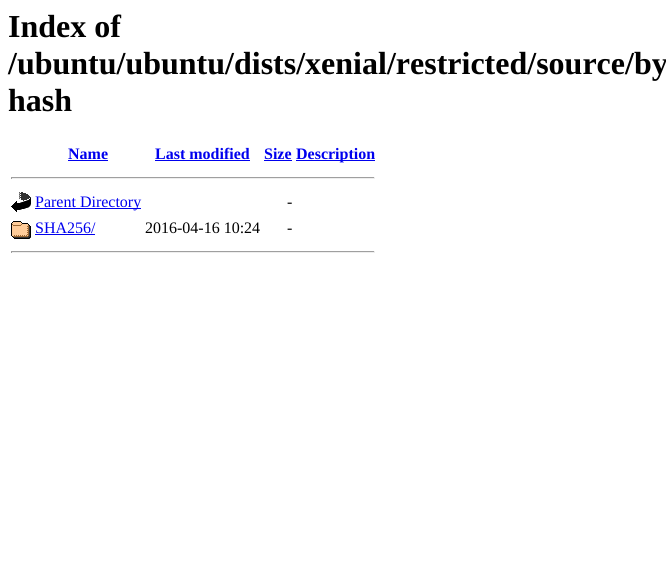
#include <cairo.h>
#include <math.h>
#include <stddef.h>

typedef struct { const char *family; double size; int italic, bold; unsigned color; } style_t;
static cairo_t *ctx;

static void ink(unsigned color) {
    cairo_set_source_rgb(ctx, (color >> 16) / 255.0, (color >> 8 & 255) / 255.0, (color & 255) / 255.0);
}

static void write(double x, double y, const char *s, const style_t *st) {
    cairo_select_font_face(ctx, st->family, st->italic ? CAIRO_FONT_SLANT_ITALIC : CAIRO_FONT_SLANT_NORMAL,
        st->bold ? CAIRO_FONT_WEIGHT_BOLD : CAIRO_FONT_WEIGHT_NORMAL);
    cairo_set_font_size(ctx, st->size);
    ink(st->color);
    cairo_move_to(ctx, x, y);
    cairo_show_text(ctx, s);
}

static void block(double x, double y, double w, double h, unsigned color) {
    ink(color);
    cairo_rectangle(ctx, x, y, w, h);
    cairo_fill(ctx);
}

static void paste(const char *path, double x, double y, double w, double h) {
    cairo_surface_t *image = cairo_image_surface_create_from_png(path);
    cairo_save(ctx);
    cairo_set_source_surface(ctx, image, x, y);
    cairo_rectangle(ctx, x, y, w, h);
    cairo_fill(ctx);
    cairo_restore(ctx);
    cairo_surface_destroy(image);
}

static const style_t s1 = {"Liberation Serif", 32, 0, 1, 0x000000};
static const style_t s2 = {"Liberation Serif", 16, 0, 1, 0x0000ee};
static const style_t s3 = {"Liberation Serif", 16, 0, 0, 0x0000ee};
static const style_t s4 = {"Liberation Serif", 16, 0, 0, 0x000000};

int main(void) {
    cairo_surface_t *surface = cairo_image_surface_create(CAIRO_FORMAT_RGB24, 666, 577);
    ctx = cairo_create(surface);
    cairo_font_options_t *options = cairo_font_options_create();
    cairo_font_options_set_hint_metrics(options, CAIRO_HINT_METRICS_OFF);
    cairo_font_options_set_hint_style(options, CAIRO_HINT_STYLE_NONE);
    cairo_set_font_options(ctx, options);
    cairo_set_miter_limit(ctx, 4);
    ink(0xffffff);
    cairo_paint(ctx);
    write(8, 37, "Index of", &s1);
    write(8, 74, "/ubuntu/ubuntu/dists/xenial/restricted/source/by", &s1);
    write(8, 111, "hash", &s1);
    write(68, 159, "Name", &s2);
    block(68, 160, 40, 1, 0x0000ee);
    write(155, 159, "Last modified", &s2);
    block(155, 160, 95, 1, 0x0000ee);
    write(264, 159, "Size", &s2);
    block(264, 160, 28, 1, 0x0000ee);
    block(296, 160, 79, 1, 0x0000ee);
    write(296, 159, "Description", &s2);
    block(11, 177, 364, 1, 0x9f9f9f);
    block(374, 177, 1, 2, 0xeeeeee);
    block(11, 178, 364, 1, 0xeeeeee);
    block(11, 177, 1, 2, 0x9f9f9f);
    paste("pic1.png", 11, 192, 20, 20);
    block(35, 208, 106, 1, 0x0000ee);
    write(35, 207, "Parent Directory", &s3);
    write(287, 207, "-", &s4);
    paste("pic2.png", 11, 221, 20, 18);
    write(35, 233, "SHA256/", &s3);
    block(35, 234, 60, 1, 0x0000ee);
    write(145, 233, "2016-04-16 10:24", &s4);
    write(287, 233, "-", &s4);
    block(11, 251, 364, 1, 0x9f9f9f);
    block(374, 251, 1, 2, 0xeeeeee);
    block(11, 252, 364, 1, 0xeeeeee);
    block(11, 251, 1, 2, 0x9f9f9f);
    cairo_surface_write_to_png(surface, "screenshot.png");
    cairo_font_options_destroy(options);
    cairo_destroy(ctx);
    cairo_surface_destroy(surface);
    return 0;
}
